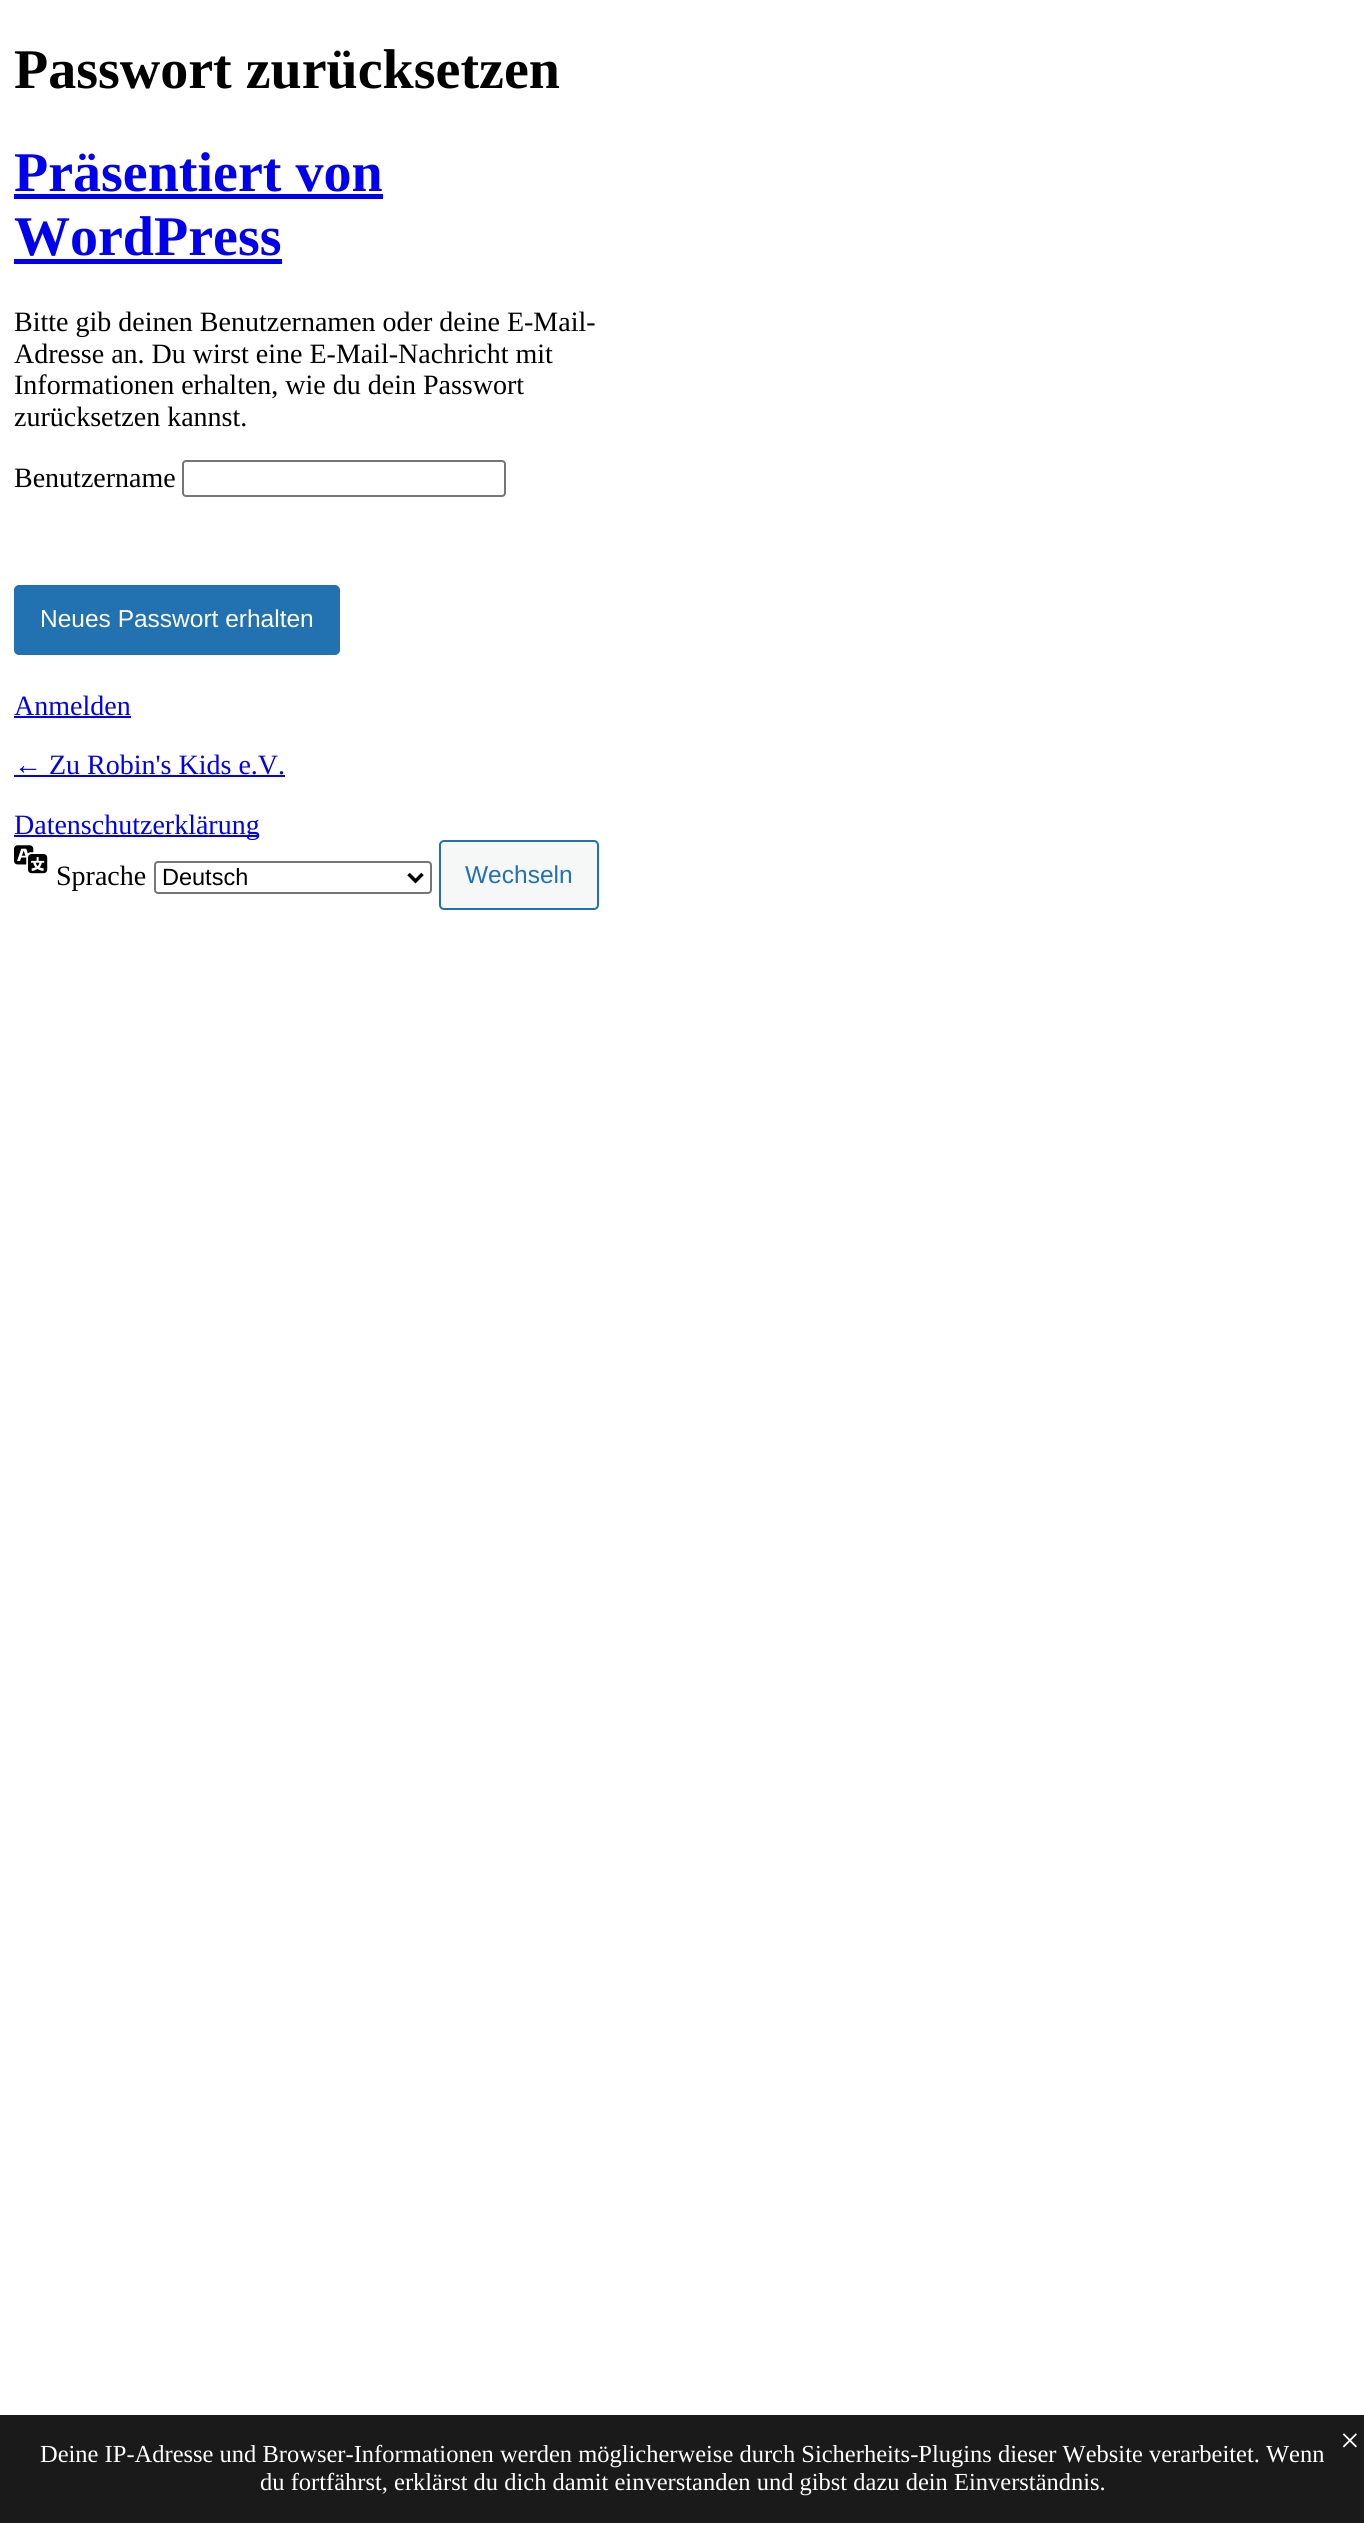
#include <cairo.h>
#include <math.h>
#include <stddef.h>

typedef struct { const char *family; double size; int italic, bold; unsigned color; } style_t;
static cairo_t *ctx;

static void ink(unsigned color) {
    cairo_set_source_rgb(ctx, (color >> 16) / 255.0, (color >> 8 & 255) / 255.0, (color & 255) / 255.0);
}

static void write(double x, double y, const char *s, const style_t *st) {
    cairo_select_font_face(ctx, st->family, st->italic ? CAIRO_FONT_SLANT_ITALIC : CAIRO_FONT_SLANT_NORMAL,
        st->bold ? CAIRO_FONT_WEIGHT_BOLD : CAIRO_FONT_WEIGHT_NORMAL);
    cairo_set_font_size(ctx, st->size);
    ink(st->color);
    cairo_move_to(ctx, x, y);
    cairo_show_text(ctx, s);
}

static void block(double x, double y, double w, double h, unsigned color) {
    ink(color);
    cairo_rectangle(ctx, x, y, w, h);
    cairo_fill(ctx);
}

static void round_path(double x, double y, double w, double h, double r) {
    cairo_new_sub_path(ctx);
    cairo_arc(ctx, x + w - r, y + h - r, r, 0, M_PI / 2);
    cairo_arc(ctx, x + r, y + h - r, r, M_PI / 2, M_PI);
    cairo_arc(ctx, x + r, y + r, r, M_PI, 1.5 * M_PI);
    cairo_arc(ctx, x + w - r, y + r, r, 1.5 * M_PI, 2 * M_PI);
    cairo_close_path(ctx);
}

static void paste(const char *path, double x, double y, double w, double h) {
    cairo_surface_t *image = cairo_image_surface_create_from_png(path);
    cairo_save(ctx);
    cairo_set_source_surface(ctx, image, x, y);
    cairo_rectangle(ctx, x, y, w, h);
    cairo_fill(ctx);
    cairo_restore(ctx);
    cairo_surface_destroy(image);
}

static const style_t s1 = {"Liberation Serif", 56, 0, 1, 0x000000};
static const style_t s2 = {"Liberation Serif", 56, 0, 1, 0x0000ee};
static const style_t s3 = {"Liberation Serif", 28, 0, 0, 0x000000};
static const style_t s4 = {"Liberation Sans", 24.5, 0, 0, 0xffffff};
static const style_t s5 = {"Liberation Serif", 28, 0, 0, 0x0000ee};
static const style_t s6 = {"Liberation Sans", 23.5, 0, 0, 0x000000};
static const style_t s7 = {"Liberation Sans", 24.5, 0, 0, 0x2271b1};
static const style_t s8 = {"Liberation Serif", 35, 0, 0, 0xffffff};
static const style_t s9 = {"Liberation Serif", 24.5, 0, 0, 0xffffff};

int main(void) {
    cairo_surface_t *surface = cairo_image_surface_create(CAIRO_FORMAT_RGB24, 1364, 2523);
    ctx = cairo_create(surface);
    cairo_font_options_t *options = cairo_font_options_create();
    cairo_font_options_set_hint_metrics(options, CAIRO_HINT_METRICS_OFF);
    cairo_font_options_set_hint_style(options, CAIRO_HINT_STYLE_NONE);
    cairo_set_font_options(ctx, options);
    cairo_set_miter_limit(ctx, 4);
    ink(0xffffff);
    cairo_paint(ctx);
    write(14, 88, "Passwort zurücksetzen", &s1);
    write(14, 191, "Präsentiert von", &s2);
    block(14, 194, 369, 5, 0x0000ee);
    write(14, 255, "WordPress", &s2);
    block(14, 259, 268, 5, 0x0000ee);
    write(14, 331, "Bitte gib deinen Benutzernamen oder deine E-Mail-", &s3);
    write(14, 363, "Adresse an. Du wirst eine E-Mail-Nachricht mit", &s3);
    write(14, 394, "Informationen erhalten, wie du dein Passwort", &s3);
    write(14, 426, "zurücksetzen kannst.", &s3);
    write(14, 487, "Benutzername", &s3);
    round_path(183, 461, 322, 35, 3);
    ink(0x767676);
    cairo_stroke(ctx);
    ink(0x2271b1);
    round_path(15, 586, 324, 68, 4);
    cairo_fill_preserve(ctx);
    cairo_stroke(ctx);
    write(40, 627, "Neues Passwort erhalten", &s4);
    write(14, 715, "Anmelden", &s5);
    block(14, 716, 117, 2, 0x0000ee);
    write(14, 774, "← Zu Robin's Kids e.V.", &s5);
    block(14, 775, 271, 2, 0x0000ee);
    block(14, 835, 245, 2, 0x0000ee);
    write(14, 834, "Datenschutzerklärung", &s5);
    paste("pic1.png", 14, 845, 34, 29);
    write(56, 885, "Sprache", &s3);
    round_path(155, 862, 276, 31, 3);
    ink(0x767676);
    cairo_stroke(ctx);
    cairo_new_path(ctx);
    cairo_move_to(ctx, 408.5, 874);
    cairo_line_to(ctx, 415.5, 881);
    cairo_line_to(ctx, 422.5, 874);
    ink(0x000000);
    cairo_set_line_width(ctx, 3.5);
    cairo_stroke(ctx);
    write(162, 885, "Deutsch", &s6);
    ink(0xf6f7f7);
    round_path(440, 841, 158, 68, 4);
    cairo_fill_preserve(ctx);
    ink(0x2271b1);
    cairo_set_line_width(ctx, 2);
    cairo_stroke(ctx);
    write(465, 883, "Wechseln", &s7);
    block(0, 2415, 1364, 108, 0x1a1a1a);
    write(1340, 2452, "×", &s8);
    write(40, 2462, "Deine IP-Adresse und Browser-Informationen werden möglicherweise durch Sicherheits-Plugins dieser Website verarbeitet. Wenn", &s9);
    write(260, 2490, "du fortfährst, erklärst du dich damit einverstanden und gibst dazu dein Einverständnis.", &s9);
    cairo_surface_write_to_png(surface, "screenshot.png");
    cairo_font_options_destroy(options);
    cairo_destroy(ctx);
    cairo_surface_destroy(surface);
    return 0;
}
